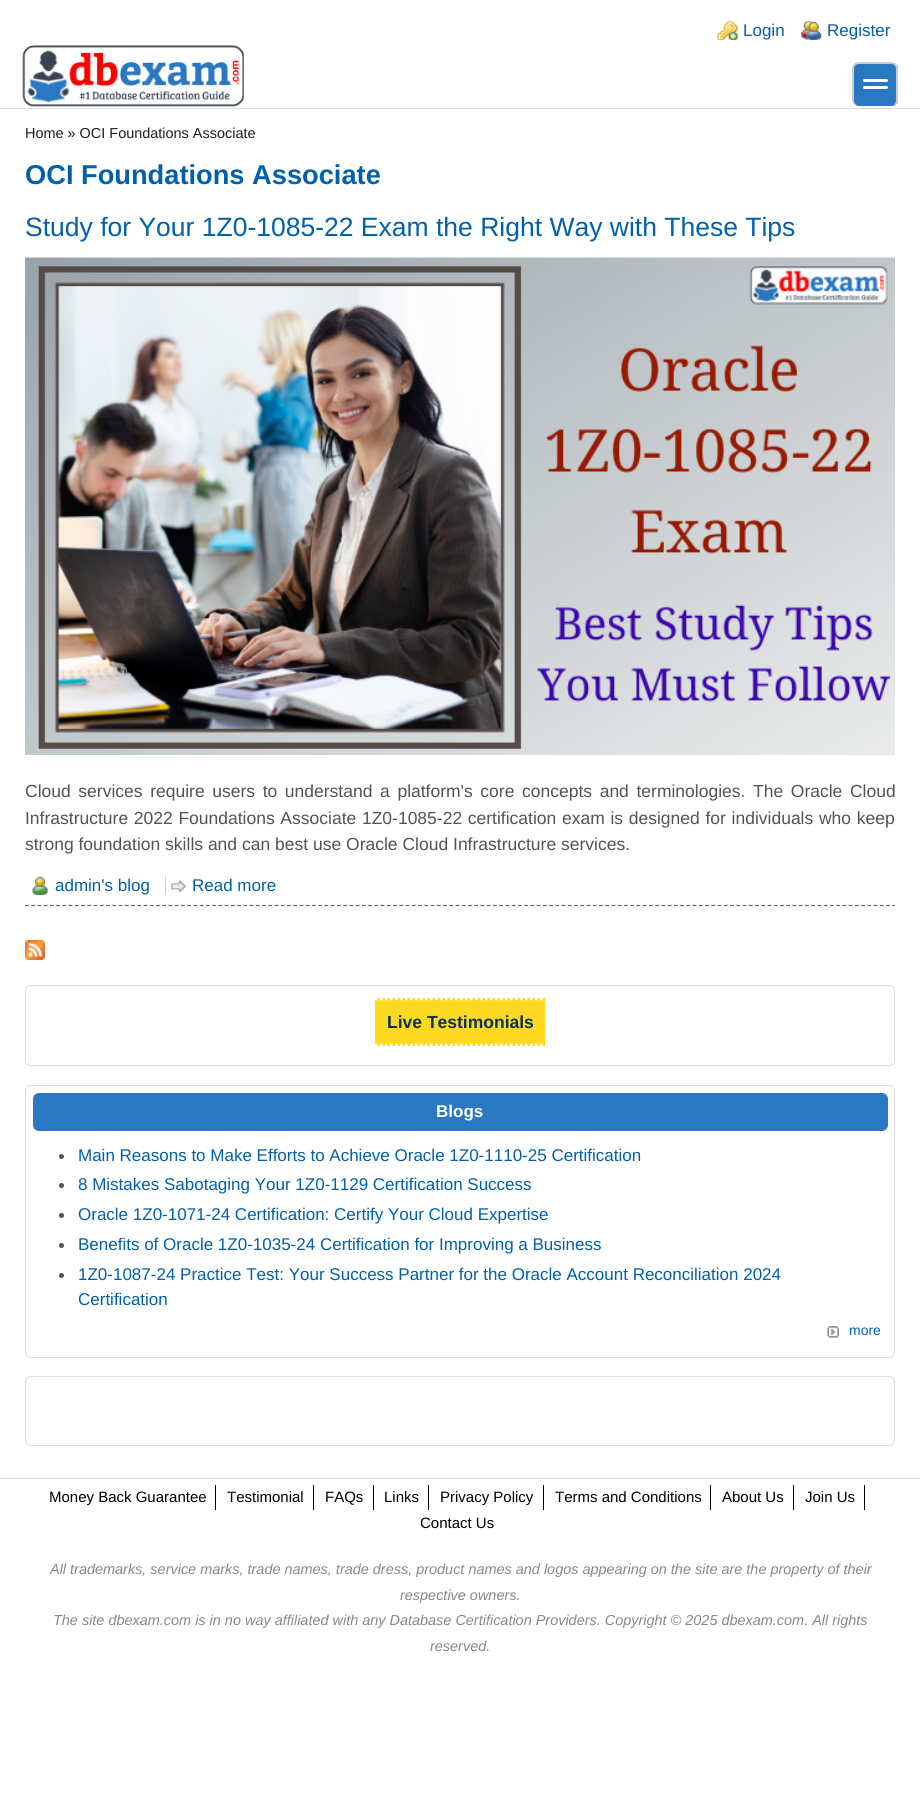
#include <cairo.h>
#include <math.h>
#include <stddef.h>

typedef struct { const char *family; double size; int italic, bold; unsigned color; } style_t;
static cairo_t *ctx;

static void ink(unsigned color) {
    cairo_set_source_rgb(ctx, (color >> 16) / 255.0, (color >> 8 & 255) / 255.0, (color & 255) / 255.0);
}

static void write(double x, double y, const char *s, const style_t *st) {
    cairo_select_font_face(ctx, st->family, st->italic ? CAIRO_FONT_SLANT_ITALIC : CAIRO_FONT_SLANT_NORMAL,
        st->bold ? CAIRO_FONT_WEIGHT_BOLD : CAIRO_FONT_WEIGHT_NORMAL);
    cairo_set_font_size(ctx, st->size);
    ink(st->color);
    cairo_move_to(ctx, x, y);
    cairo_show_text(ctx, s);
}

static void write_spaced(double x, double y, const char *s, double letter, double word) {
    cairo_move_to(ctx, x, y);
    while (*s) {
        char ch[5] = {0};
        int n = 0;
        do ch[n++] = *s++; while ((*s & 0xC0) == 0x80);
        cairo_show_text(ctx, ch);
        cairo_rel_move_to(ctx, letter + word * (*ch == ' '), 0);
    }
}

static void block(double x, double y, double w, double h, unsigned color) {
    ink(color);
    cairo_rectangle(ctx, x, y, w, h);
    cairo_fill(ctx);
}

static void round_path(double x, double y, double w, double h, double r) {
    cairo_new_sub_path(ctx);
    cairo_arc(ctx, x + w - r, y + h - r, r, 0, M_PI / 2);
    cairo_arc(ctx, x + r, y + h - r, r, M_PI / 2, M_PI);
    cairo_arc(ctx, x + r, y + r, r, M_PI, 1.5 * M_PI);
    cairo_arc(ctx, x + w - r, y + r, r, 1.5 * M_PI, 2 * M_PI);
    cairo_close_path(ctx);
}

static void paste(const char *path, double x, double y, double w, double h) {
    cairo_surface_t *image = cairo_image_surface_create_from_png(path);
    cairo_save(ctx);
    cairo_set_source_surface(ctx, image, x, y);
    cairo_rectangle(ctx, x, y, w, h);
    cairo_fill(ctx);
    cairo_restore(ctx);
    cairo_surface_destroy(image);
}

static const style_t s1 = {"Liberation Sans", 17, 0, 0, 0x0060ac};
static const style_t s2 = {"Liberation Sans", 14.45, 0, 0, 0x1e201b};
static const style_t s3 = {"Liberation Sans", 27.25, 0, 1, 0x0060ac};
static const style_t s4 = {"Liberation Sans", 26.5, 0, 0, 0x0060ac};
static const style_t s5 = {"Liberation Sans", 17.5, 0, 0, 0x535353};
static const style_t s6 = {"Liberation Sans", 17.5, 0, 1, 0x0a3151};
static const style_t s7 = {"Liberation Sans", 17, 0, 1, 0xffffff};
static const style_t s8 = {"Liberation Sans", 14, 0, 0, 0x0060ac};
static const style_t s9 = {"Liberation Sans", 15, 0, 0, 0x000000};
static const style_t s10 = {"Liberation Sans", 14.45, 1, 0, 0x888888};

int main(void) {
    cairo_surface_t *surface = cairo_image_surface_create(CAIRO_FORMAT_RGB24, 920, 1808);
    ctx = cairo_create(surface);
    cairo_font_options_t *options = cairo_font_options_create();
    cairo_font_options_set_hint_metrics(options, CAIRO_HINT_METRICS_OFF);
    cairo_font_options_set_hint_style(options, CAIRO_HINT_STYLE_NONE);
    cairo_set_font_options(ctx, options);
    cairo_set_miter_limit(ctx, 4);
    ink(0xffffff);
    cairo_paint(ctx);
    paste("pic1.png", 717, 21, 21, 19);
    write(743, 36, "Login", &s1);
    paste("pic2.png", 801, 21, 21, 19);
    write(827, 36, "Register", &s1);
    block(0, 108, 920, 1, 0xdddddd);
    paste("pic3.png", 22, 45, 222, 62);
    ink(0x2b78c2);
    round_path(853, 63, 45, 43, 6);
    cairo_fill(ctx);
    ink(0xcccccc);
    cairo_set_fill_rule(ctx, CAIRO_FILL_RULE_EVEN_ODD);
    cairo_new_path(ctx);
    cairo_move_to(ctx, 859, 62);
    cairo_line_to(ctx, 891, 62);
    cairo_curve_to(ctx, 895, 62, 898, 65, 898, 69);
    cairo_line_to(ctx, 898, 100);
    cairo_curve_to(ctx, 898, 103, 895, 106, 891, 106);
    cairo_line_to(ctx, 859, 106);
    cairo_curve_to(ctx, 855, 106, 852, 103, 852, 100);
    cairo_line_to(ctx, 852, 69);
    cairo_curve_to(ctx, 852, 65, 855, 62, 859, 62);
    cairo_close_path(ctx);
    cairo_move_to(ctx, 859, 64);
    cairo_line_to(ctx, 891, 64);
    cairo_curve_to(ctx, 894, 64, 896, 66, 896, 69);
    cairo_line_to(ctx, 896, 100);
    cairo_curve_to(ctx, 896, 103, 894, 106, 891, 106);
    cairo_line_to(ctx, 859, 106);
    cairo_curve_to(ctx, 856, 106, 854, 103, 854, 100);
    cairo_line_to(ctx, 854, 69);
    cairo_curve_to(ctx, 854, 66, 856, 64, 859, 64);
    cairo_close_path(ctx);
    cairo_fill(ctx);
    ink(0xffffff);
    round_path(863, 79, 25, 3, 1.5);
    cairo_fill(ctx);
    round_path(863, 86, 25, 3, 1.5);
    cairo_fill(ctx);
    block(0, 1478, 920, 1, 0xdddddd);
    write(25, 138, "Home » OCI Foundations Associate", &s2);
    write(25, 184, "OCI Foundations Associate", &s3);
    cairo_new_path(ctx);
    cairo_move_to(ctx, 25, 905.5);
    cairo_line_to(ctx, 895, 905.5);
    ink(0x666666);
    cairo_set_line_width(ctx, 1.2);
    cairo_set_dash(ctx, (double[]){3.75, 2.49}, 2, 0);
    cairo_stroke(ctx);
    write(25, 236, "Study for Your 1Z0-1085-22 Exam the Right Way with These Tips", &s4);
    paste("pic4.png", 25, 257, 870, 498);
    cairo_set_font_size(ctx, 17.5);
    ink(0x535353);
    write_spaced(25, 797, "Cloud services require users to understand a platform's core concepts and terminologies. The Oracle Cloud", 0, 2.75);
    write_spaced(25, 824, "Infrastructure 2022 Foundations Associate 1Z0-1085-22 certification exam is designed for individuals who keep", 0, 0.8);
    write(25, 850, "strong foundation skills and can best use Oracle Cloud Infrastructure services.", &s5);
    paste("pic5.png", 32, 876, 16, 19);
    write(55, 891, "admin's blog", &s1);
    block(165, 876, 1, 19, 0xd3d3d3);
    paste("pic6.png", 171, 880, 16, 12);
    write(192, 891, "Read more", &s1);
    paste("pic7.png", 25, 940, 20, 20);
    round_path(25.5, 985.5, 869, 80, 5.5);
    ink(0xdddddd);
    cairo_set_line_width(ctx, 1);
    cairo_set_dash(ctx, NULL, 0, 0);
    cairo_stroke(ctx);
    block(375, 998, 170, 48, 0xfdd922);
    write(387, 1028, "Live Testimonials", &s6);
    cairo_new_path(ctx);
    cairo_move_to(ctx, 375, 999);
    cairo_line_to(ctx, 545, 999);
    ink(0xffffff);
    cairo_set_line_width(ctx, 2.5);
    cairo_set_dash(ctx, (double[]){2.5, 2.5}, 2, 0);
    cairo_stroke(ctx);
    cairo_new_path(ctx);
    cairo_move_to(ctx, 375, 1045);
    cairo_line_to(ctx, 545, 1045);
    cairo_stroke(ctx);
    round_path(25.5, 1085.5, 869, 272, 5.5);
    ink(0xdddddd);
    cairo_set_line_width(ctx, 1);
    cairo_set_dash(ctx, NULL, 0, 0);
    cairo_stroke(ctx);
    ink(0x2b78c2);
    round_path(33, 1093, 855, 38, 6);
    cairo_fill(ctx);
    write(436, 1117, "Blogs", &s7);
    ink(0x535353);
    cairo_new_path(ctx);
    cairo_arc(ctx, 61.5, 1156.5, 2.5, 0, 2 * M_PI);
    cairo_fill(ctx);
    write(78, 1161, "Main Reasons to Make Efforts to Achieve Oracle 1Z0-1110-25 Certification", &s1);
    ink(0x535353);
    cairo_new_path(ctx);
    cairo_arc(ctx, 61.5, 1185.5, 2.5, 0, 2 * M_PI);
    cairo_fill(ctx);
    write(78, 1190, "8 Mistakes Sabotaging Your 1Z0-1129 Certification Success", &s1);
    ink(0x535353);
    cairo_new_path(ctx);
    cairo_arc(ctx, 61.5, 1215.5, 2.5, 0, 2 * M_PI);
    cairo_fill(ctx);
    write(78, 1220, "Oracle 1Z0-1071-24 Certification: Certify Your Cloud Expertise", &s1);
    ink(0x535353);
    cairo_new_path(ctx);
    cairo_arc(ctx, 61.5, 1245.5, 2.5, 0, 2 * M_PI);
    cairo_fill(ctx);
    write(78, 1250, "Benefits of Oracle 1Z0-1035-24 Certification for Improving a Business", &s1);
    ink(0x535353);
    cairo_new_path(ctx);
    cairo_arc(ctx, 61.5, 1275.5, 2.5, 0, 2 * M_PI);
    cairo_fill(ctx);
    write(78, 1280, "1Z0-1087-24 Practice Test: Your Success Partner for the Oracle Account Reconciliation 2024", &s1);
    write(78, 1305, "Certification", &s1);
    paste("pic8.png", 827, 1326, 12, 12);
    write(849, 1335, "more", &s8);
    round_path(25.5, 1376.5, 869, 69, 5.5);
    ink(0xdddddd);
    cairo_stroke(ctx);
    block(215, 1485, 1, 25, 0x000000);
    write(49, 1502, "Money Back Guarantee", &s9);
    block(313, 1485, 1, 25, 0x000000);
    write(227, 1502, "Testimonial", &s9);
    block(373, 1485, 1, 25, 0x000000);
    write(325, 1502, "FAQs", &s9);
    block(428, 1485, 1, 25, 0x000000);
    write(384, 1502, "Links", &s9);
    block(543, 1485, 1, 25, 0x000000);
    write(440, 1502, "Privacy Policy", &s9);
    block(710, 1485, 1, 25, 0x000000);
    write(555, 1502, "Terms and Conditions", &s9);
    block(793, 1485, 1, 25, 0x000000);
    write(722, 1502, "About Us", &s9);
    block(864, 1485, 1, 25, 0x000000);
    write(805, 1502, "Join Us", &s9);
    write(420, 1528, "Contact Us", &s9);
    write(50, 1574, "All trademarks, service marks, trade names, trade dress, product names and logos appearing on the site are the property of their", &s10);
    write(400, 1600, "respective owners.", &s10);
    write(53, 1625, "The site dbexam.com is in no way affiliated with any Database Certification Providers. Copyright © 2025 dbexam.com. All rights", &s10);
    write(430, 1651, "reserved.", &s10);
    cairo_surface_write_to_png(surface, "screenshot.png");
    cairo_font_options_destroy(options);
    cairo_destroy(ctx);
    cairo_surface_destroy(surface);
    return 0;
}
